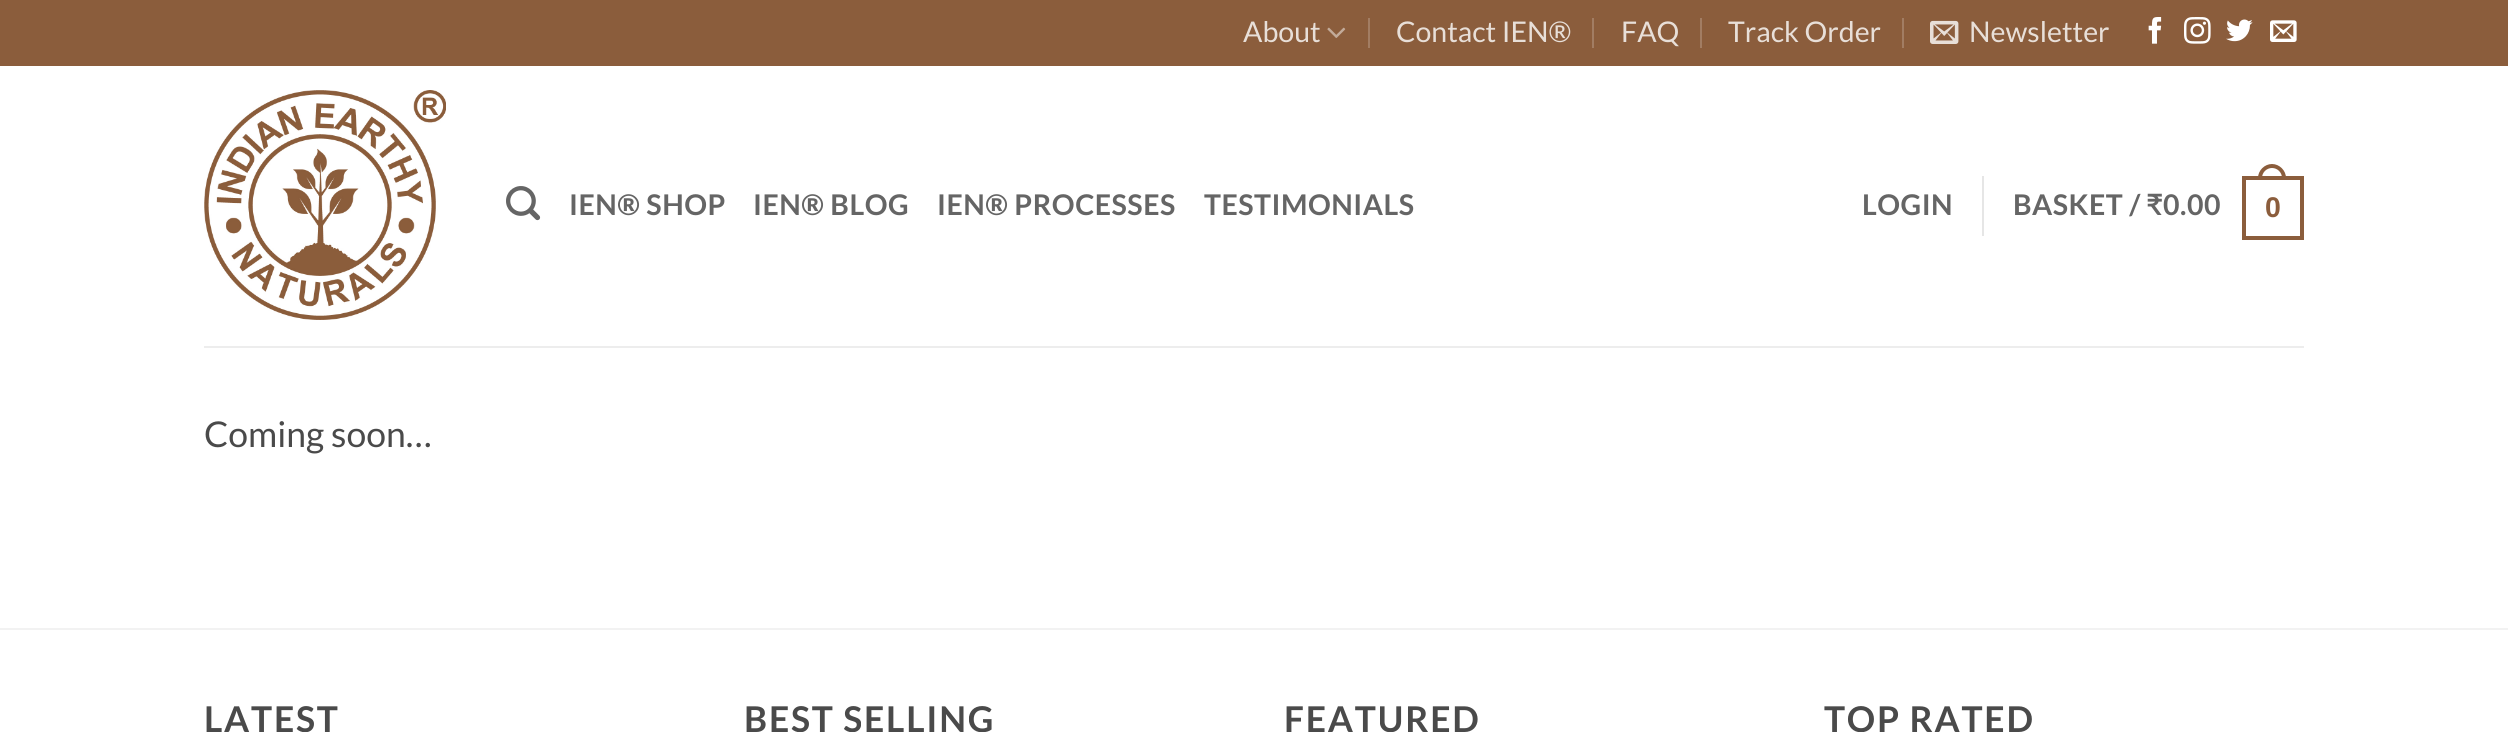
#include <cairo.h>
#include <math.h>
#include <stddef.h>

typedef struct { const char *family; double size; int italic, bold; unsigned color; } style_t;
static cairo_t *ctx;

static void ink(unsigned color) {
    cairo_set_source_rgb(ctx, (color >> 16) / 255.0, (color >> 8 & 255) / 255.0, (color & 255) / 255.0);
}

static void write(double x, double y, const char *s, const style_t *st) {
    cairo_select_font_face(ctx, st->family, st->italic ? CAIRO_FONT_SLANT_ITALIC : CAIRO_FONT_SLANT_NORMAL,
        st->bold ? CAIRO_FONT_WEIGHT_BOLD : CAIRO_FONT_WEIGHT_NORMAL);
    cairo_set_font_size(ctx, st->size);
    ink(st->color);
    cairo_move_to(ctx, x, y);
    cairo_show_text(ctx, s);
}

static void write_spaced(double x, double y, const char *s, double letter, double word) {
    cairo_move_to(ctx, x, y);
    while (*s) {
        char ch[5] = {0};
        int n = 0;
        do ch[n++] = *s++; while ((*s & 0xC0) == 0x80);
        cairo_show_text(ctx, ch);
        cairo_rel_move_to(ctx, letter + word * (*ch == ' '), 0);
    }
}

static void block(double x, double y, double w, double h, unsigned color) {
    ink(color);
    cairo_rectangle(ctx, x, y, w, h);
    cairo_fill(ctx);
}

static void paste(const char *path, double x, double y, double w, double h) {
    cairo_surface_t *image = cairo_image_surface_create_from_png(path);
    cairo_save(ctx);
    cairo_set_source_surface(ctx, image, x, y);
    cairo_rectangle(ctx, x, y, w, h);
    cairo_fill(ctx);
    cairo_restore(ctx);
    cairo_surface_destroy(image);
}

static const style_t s1 = {"Lato", 28.5, 0, 0, 0xe8dfd8};
static const style_t s2 = {"Lato", 35.5, 0, 0, 0x4a4a4a};

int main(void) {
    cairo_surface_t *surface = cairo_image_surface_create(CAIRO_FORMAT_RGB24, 2508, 732);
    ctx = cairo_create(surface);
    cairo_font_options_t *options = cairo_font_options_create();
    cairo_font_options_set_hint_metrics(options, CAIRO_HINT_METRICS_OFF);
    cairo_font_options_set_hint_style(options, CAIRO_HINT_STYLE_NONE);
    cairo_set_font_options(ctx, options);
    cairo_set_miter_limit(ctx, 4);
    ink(0xffffff);
    cairo_paint(ctx);
    block(0, 0, 2508, 66, 0x8b5d3c);
    write(1243, 42, "About", &s1);
    paste("pic1.png", 1327, 27, 19, 11);
    block(1368, 18, 2, 30, 0xa27d63);
    write(1396, 42, "Contact IEN®", &s1);
    block(1592, 18, 2, 30, 0xa27d63);
    write(1621, 42, "FAQ", &s1);
    block(1700, 18, 2, 30, 0xa27d63);
    write(1728, 42, "Track Order", &s1);
    block(1902, 18, 2, 30, 0xa27d63);
    paste("pic2.png", 1930, 20, 29, 24);
    write(1969, 42, "Newsletter", &s1);
    paste("pic3.png", 2148, 17, 14, 27);
    paste("pic4.png", 2184, 17, 27, 27);
    paste("pic5.png", 2226, 19, 27, 23);
    paste("pic6.png", 2270, 20, 27, 22);
    paste("pic7.png", 204, 90, 242, 230);
    paste("pic8.png", 506, 186, 35, 35);
    cairo_select_font_face(ctx, "Lato", CAIRO_FONT_SLANT_NORMAL, CAIRO_FONT_WEIGHT_BOLD);
    ink(0x656565);
    write_spaced(569, 215, "IEN® SHOP", 0.5, 0);
    write_spaced(753, 215, "IEN® BLOG", 0.5, 0);
    write_spaced(937, 215, "IEN® PROCESSES", 0.5, 0);
    write_spaced(1204, 215, "TESTIMONIALS", 0.5, 0);
    write_spaced(1862, 215, "LOGIN", 0.5, 0);
    block(1982, 176, 2, 60, 0xe6e6e6);
    ink(0x656565);
    write_spaced(2013, 215, "BASKET /", 0.5, 0);
    cairo_select_font_face(ctx, "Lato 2", CAIRO_FONT_SLANT_NORMAL, CAIRO_FONT_WEIGHT_BOLD);
    write_spaced(2146, 215, "₹", 0.5, 0);
    cairo_select_font_face(ctx, "Lato", CAIRO_FONT_SLANT_NORMAL, CAIRO_FONT_WEIGHT_BOLD);
    write_spaced(2163, 215, "0.00", 0.5, 0);
    cairo_rectangle(ctx, 2244, 178, 58, 60);
    ink(0x8b5d3c);
    cairo_set_line_width(ctx, 4);
    cairo_stroke(ctx);
    cairo_set_fill_rule(ctx, CAIRO_FILL_RULE_EVEN_ODD);
    cairo_new_path(ctx);
    cairo_move_to(ctx, 2272, 164);
    cairo_curve_to(ctx, 2279.5, 164, 2286, 170.5, 2286, 178);
    cairo_line_to(ctx, 2286, 180);
    cairo_line_to(ctx, 2258, 180);
    cairo_line_to(ctx, 2258, 178);
    cairo_curve_to(ctx, 2258, 170.5, 2264.5, 164, 2272, 164);
    cairo_close_path(ctx);
    cairo_move_to(ctx, 2272, 168);
    cairo_curve_to(ctx, 2277.5, 168, 2282, 172.5, 2282, 178);
    cairo_line_to(ctx, 2282, 180);
    cairo_line_to(ctx, 2262, 180);
    cairo_line_to(ctx, 2262, 178);
    cairo_curve_to(ctx, 2262, 172.5, 2266.5, 168, 2272, 168);
    cairo_close_path(ctx);
    cairo_fill(ctx);
    cairo_select_font_face(ctx, "Liberation Sans", CAIRO_FONT_SLANT_NORMAL, CAIRO_FONT_WEIGHT_BOLD);
    write_spaced(2265, 217, "0", 0.5, 0);
    block(204, 346, 2100, 2, 0xededed);
    write(204, 447, "Coming soon…", &s2);
    block(0, 628, 2508, 2, 0xf2f2f2);
    cairo_select_font_face(ctx, "Lato", CAIRO_FONT_SLANT_NORMAL, CAIRO_FONT_WEIGHT_BOLD);
    ink(0x4a4a4a);
    write_spaced(204, 732, "LATEST", 1.75, 0);
    write_spaced(744, 732, "BEST SELLING", 1.75, 0);
    write_spaced(1284, 732, "FEATURED", 1.75, 0);
    write_spaced(1824, 732, "TOP RATED", 1.75, 0);
    cairo_surface_write_to_png(surface, "screenshot.png");
    cairo_font_options_destroy(options);
    cairo_destroy(ctx);
    cairo_surface_destroy(surface);
    return 0;
}
